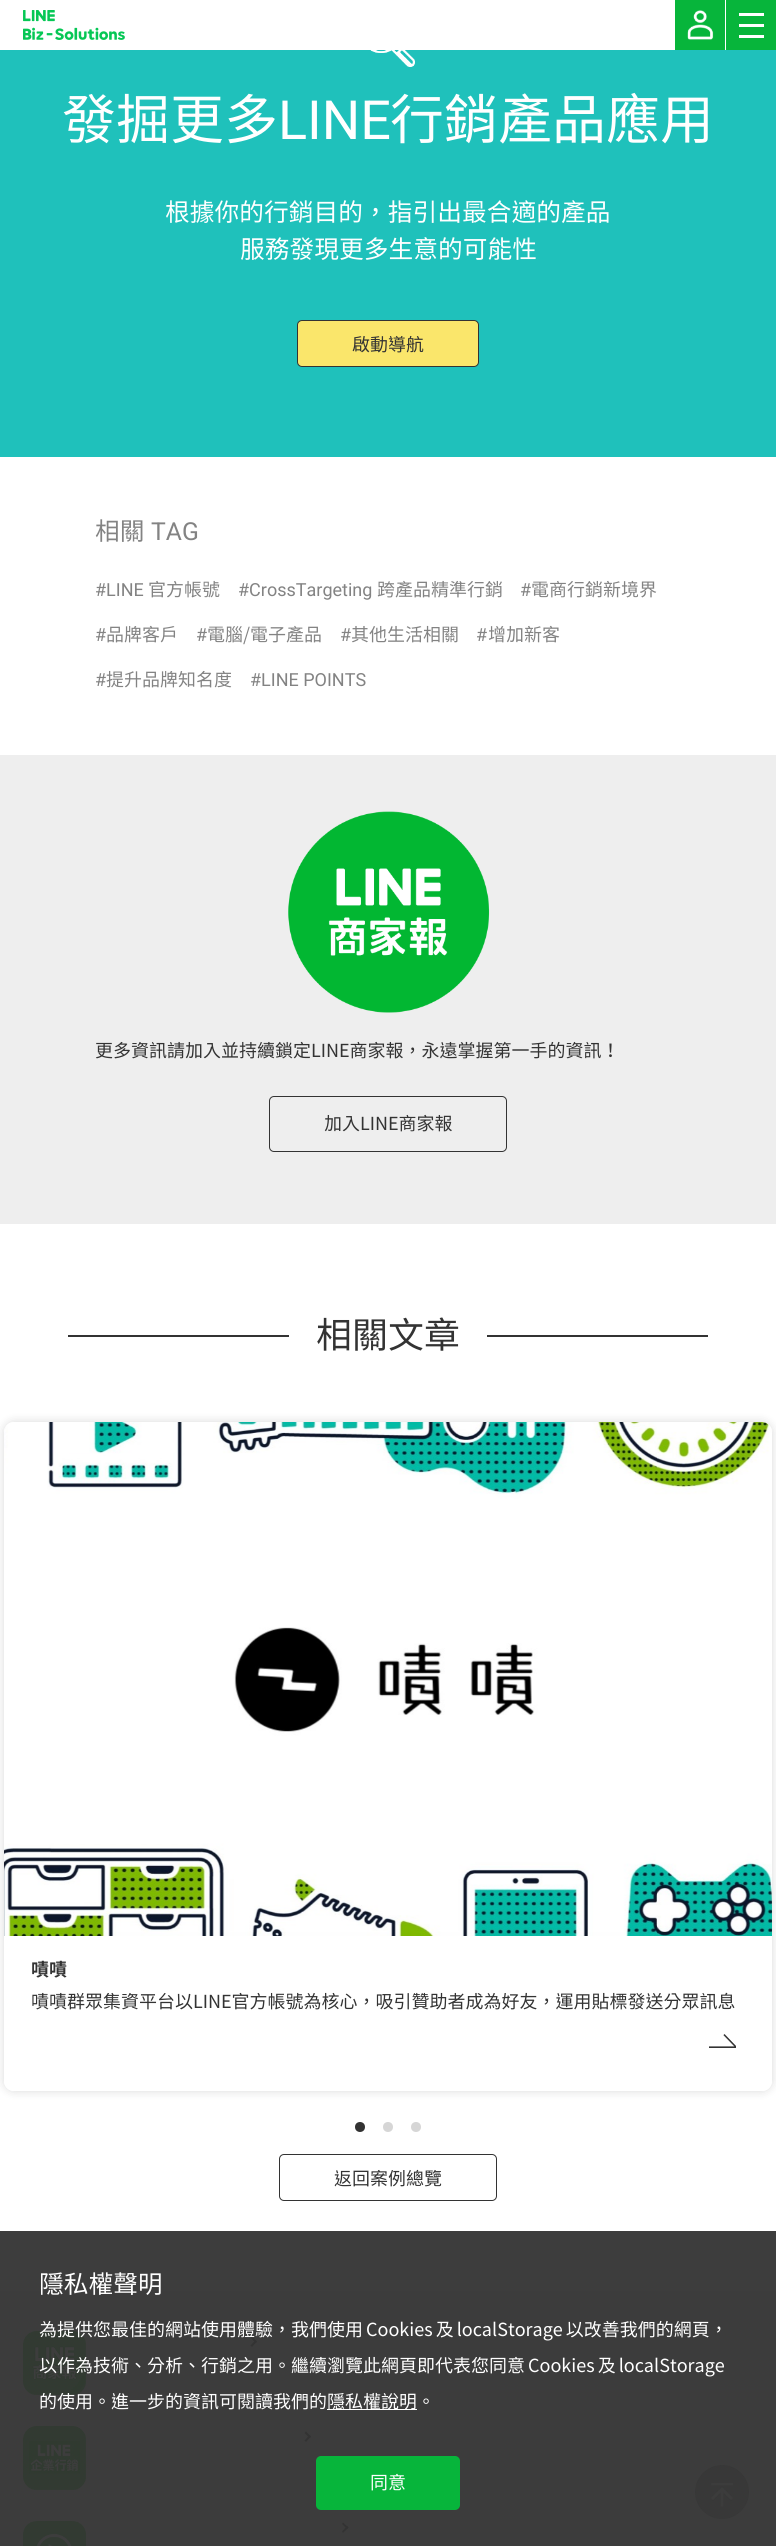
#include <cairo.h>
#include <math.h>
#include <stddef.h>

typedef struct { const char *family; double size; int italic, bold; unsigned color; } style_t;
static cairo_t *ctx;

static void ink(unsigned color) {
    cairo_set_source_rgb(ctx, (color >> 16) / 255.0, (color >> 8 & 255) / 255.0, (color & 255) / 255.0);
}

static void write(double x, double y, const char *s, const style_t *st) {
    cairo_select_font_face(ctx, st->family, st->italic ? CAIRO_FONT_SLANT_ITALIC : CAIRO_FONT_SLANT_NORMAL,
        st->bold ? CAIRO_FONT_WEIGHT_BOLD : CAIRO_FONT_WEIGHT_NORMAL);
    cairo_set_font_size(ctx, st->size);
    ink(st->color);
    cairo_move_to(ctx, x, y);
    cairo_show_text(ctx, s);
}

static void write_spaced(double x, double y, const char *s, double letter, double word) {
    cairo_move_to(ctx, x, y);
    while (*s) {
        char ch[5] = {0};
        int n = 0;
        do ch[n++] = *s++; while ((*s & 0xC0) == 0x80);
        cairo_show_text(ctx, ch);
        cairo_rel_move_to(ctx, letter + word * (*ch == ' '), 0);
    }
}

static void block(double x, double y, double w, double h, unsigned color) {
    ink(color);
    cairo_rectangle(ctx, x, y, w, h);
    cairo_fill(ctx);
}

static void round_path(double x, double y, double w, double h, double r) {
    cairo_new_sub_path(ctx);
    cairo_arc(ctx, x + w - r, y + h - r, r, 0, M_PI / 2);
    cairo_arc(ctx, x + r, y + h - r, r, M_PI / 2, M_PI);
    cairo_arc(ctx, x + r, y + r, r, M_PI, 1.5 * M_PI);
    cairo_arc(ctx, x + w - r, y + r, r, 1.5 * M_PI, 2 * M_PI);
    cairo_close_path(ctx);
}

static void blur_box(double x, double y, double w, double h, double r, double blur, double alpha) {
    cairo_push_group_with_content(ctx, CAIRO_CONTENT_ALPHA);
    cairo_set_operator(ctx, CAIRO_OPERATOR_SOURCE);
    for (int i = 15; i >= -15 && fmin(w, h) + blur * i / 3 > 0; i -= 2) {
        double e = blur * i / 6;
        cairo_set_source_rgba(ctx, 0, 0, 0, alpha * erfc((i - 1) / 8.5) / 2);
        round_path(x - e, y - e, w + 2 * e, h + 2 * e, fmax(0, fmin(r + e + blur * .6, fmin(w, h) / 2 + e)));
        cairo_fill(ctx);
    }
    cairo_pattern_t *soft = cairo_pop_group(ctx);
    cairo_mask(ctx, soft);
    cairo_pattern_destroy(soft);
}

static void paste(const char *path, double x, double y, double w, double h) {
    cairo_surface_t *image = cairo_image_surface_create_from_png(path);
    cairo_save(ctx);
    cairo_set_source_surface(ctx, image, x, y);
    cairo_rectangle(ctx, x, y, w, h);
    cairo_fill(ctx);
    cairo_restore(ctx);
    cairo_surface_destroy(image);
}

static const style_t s1 = {"Noto Sans TC", 54, 0, 0, 0xffffff};
static const style_t s2 = {"Roboto", 54, 0, 0, 0xffffff};
static const style_t s3 = {"Noto Sans TC", 24.75, 0, 0, 0xffffff};
static const style_t s4 = {"Noto Sans TC", 18, 0, 0, 0x333333};
static const style_t s5 = {"Noto Sans TC", 24.75, 0, 0, 0x838383};
static const style_t s6 = {"Roboto", 24.75, 0, 0, 0x838383};
static const style_t s7 = {"Roboto", 18, 0, 0, 0x838383};
static const style_t s8 = {"Noto Sans TC", 18, 0, 0, 0x838383};
static const style_t s9 = {"Noto Sans TC", 36, 0, 0, 0x333333};
static const style_t s10 = {"Noto Sans TC", 18, 0, 1, 0x333333};
static const style_t s11 = {"Noto Sans TC", 18, 0, 0, 0xffffff};

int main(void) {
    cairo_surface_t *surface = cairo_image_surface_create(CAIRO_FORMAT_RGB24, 776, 2546);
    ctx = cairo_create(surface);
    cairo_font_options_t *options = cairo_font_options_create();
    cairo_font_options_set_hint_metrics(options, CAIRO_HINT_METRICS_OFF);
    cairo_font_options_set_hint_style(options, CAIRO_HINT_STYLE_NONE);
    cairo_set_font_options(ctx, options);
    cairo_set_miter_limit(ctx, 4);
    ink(0xffffff);
    cairo_paint(ctx);
    block(0, 2231, 776, 60, 0x3d3d3d);
    paste("pic1.png", 23, 10, 102, 30);
    block(675, 0, 50, 50, 0x07b53b);
    paste("pic2.png", 687, 10, 27, 30);
    block(726, 0, 50, 50, 0x07b53b);
    block(739, 13, 25, 3, 0xffffff);
    block(739, 24, 25, 3, 0xffffff);
    block(739, 35, 25, 3, 0xffffff);
    block(0, 50, 776, 407, 0x1fc1bb);
    paste("pic3.png", 370, 50, 45, 17);
    write(62, 139, "發掘更多", &s1);
    write(278, 139, "LINE", &s2);
    write(390, 139, "行銷產品應用", &s1);
    write(165, 221, "根據你的行銷目的，指引出最合適的產品", &s3);
    write(240, 258, "服務發現更多生意的可能性", &s3);
    ink(0xfae66b);
    round_path(297.5, 320.5, 181, 46, 4.5);
    cairo_fill_preserve(ctx);
    ink(0x333333);
    cairo_set_line_width(ctx, 1);
    cairo_stroke(ctx);
    write(352, 351, "啟動導航", &s4);
    write(95, 540, "相關", &s5);
    write(151, 540, "TAG", &s6);
    write(95, 596, "#LINE", &s7);
    write(148, 596, "官方帳號", &s8);
    write(238, 596, "#CrossTargeting", &s7);
    write(377, 596, "跨產品精準行銷", &s8);
    write(520, 596, "#", &s7);
    write(531, 596, "電商行銷新境界", &s8);
    write(95, 641, "#", &s7);
    write(106, 641, "品牌客戶", &s8);
    write(196, 641, "#", &s7);
    write(207, 641, "電腦/電子產品", &s8);
    write(340, 641, "#", &s7);
    write(351, 641, "其他生活相關", &s8);
    write(476, 641, "#", &s7);
    write(488, 641, "增加新客", &s8);
    write(95, 686, "#", &s7);
    write(106, 686, "提升品牌知名度", &s8);
    write(250, 686, "#LINE POINTS", &s7);
    block(0, 755, 776, 469, 0xeeeeee);
    paste("pic4.png", 288, 811, 202, 202);
    write(95, 1057, "更多資訊請加入並持續鎖定LINE商家報，永遠掌握第一手的資訊！", &s4);
    round_path(269.5, 1096.5, 237, 55, 4.5);
    cairo_stroke(ctx);
    write(324, 1130, "加入LINE商家報", &s4);
    block(68, 1335, 640, 2, 0x333333);
    block(289, 1335, 198, 2, 0xffffff);
    write(316, 1348, "相關文章", &s9);
    ink(0x000000);
    blur_box(4, 1422, 768, 669, 10, 5, 0.15);
    ink(0xffffff);
    round_path(4, 1422, 768, 669, 10);
    cairo_fill(ctx);
    paste("pic5.png", 4, 1422, 768, 514);
    cairo_new_path(ctx);
    cairo_move_to(ctx, 4, 1936);
    cairo_line_to(ctx, 772, 1936);
    cairo_line_to(ctx, 772, 2081);
    cairo_curve_to(ctx, 772, 2086.5, 767.5, 2091, 762, 2091);
    cairo_line_to(ctx, 14, 2091);
    cairo_curve_to(ctx, 8.5, 2091, 4, 2086.5, 4, 2081);
    cairo_close_path(ctx);
    cairo_fill(ctx);
    write(31, 1976, "嘖嘖", &s10);
    write(31, 2008, "嘖嘖群眾集資平台以LINE官方帳號為核心，吸引贊助者成為好友，運用貼標發送分眾訊息", &s4);
    paste("pic6.png", 709, 2034, 27, 14);
    cairo_arc(ctx, 360, 2127, 5, 0, 2 * M_PI);
    cairo_fill(ctx);
    ink(0xd6d6d6);
    cairo_arc(ctx, 388, 2127, 5, 0, 2 * M_PI);
    cairo_fill(ctx);
    cairo_arc(ctx, 416, 2127, 5, 0, 2 * M_PI);
    cairo_fill(ctx);
    round_path(279.5, 2154.5, 217, 46, 4.5);
    ink(0x333333);
    cairo_stroke(ctx);
    write(334, 2185, "返回案例總覽", &s4);
    block(0, 2291, 776, 255, 0x3c3c3c);
    write(39, 2293, "隱私權聲明", &s3);
    paste("pic7.png", 23, 2331, 63, 64);
    ink(0x333333);
    cairo_new_path(ctx);
    cairo_move_to(ctx, 252, 2336.5);
    cairo_line_to(ctx, 257, 2341.5);
    cairo_line_to(ctx, 255.5, 2343);
    cairo_line_to(ctx, 250.5, 2337.5);
    cairo_close_path(ctx);
    cairo_fill(ctx);
    cairo_new_path(ctx);
    cairo_move_to(ctx, 255.5, 2340);
    cairo_line_to(ctx, 257, 2341.5);
    cairo_line_to(ctx, 252, 2347);
    cairo_line_to(ctx, 250.5, 2345.5);
    cairo_close_path(ctx);
    cairo_fill(ctx);
    cairo_set_font_size(ctx, 18);
    ink(0xffffff);
    write_spaced(39, 2336, "為提供您最佳的網站使用體驗，我們使用 Cookies 及 localStorage 以改善我們的網頁，", 0, -1);
    write_spaced(39, 2372, "以作為技術、分析、行銷之用。繼續瀏覽此網頁即代表您同意 Cookies 及 localStorage", 0, -1);
    write(39, 2408, "的使用。進一步的資訊可閱讀我們的", &s11);
    block(327, 2409, 90, 1, 0xffffff);
    write(327, 2408, "隱私權說明。", &s11);
    ink(0x07b53b);
    round_path(316, 2456, 144, 54, 5);
    cairo_fill(ctx);
    write(370, 2489, "同意", &s11);
    paste("pic8.png", 23, 2426, 63, 64);
    ink(0x333333);
    cairo_new_path(ctx);
    cairo_move_to(ctx, 306, 2431.5);
    cairo_line_to(ctx, 311, 2436.5);
    cairo_line_to(ctx, 309.5, 2438);
    cairo_line_to(ctx, 304.5, 2433);
    cairo_close_path(ctx);
    cairo_fill(ctx);
    cairo_new_path(ctx);
    cairo_move_to(ctx, 309.5, 2435);
    cairo_line_to(ctx, 311, 2436.5);
    cairo_line_to(ctx, 306, 2442);
    cairo_line_to(ctx, 304.5, 2440.5);
    cairo_close_path(ctx);
    cairo_fill(ctx);
    paste("pic9.png", 23, 2521, 63, 25);
    cairo_new_path(ctx);
    cairo_move_to(ctx, 343, 2522.5);
    cairo_line_to(ctx, 348.5, 2527.5);
    cairo_line_to(ctx, 347, 2529);
    cairo_line_to(ctx, 342, 2524);
    cairo_close_path(ctx);
    cairo_fill(ctx);
    cairo_new_path(ctx);
    cairo_move_to(ctx, 347, 2526);
    cairo_line_to(ctx, 348.5, 2527.5);
    cairo_line_to(ctx, 343, 2533);
    cairo_line_to(ctx, 342, 2531.5);
    cairo_close_path(ctx);
    cairo_fill(ctx);
    paste("pic10.png", 695, 2465, 54, 54);
    cairo_surface_write_to_png(surface, "screenshot.png");
    cairo_font_options_destroy(options);
    cairo_destroy(ctx);
    cairo_surface_destroy(surface);
    return 0;
}
